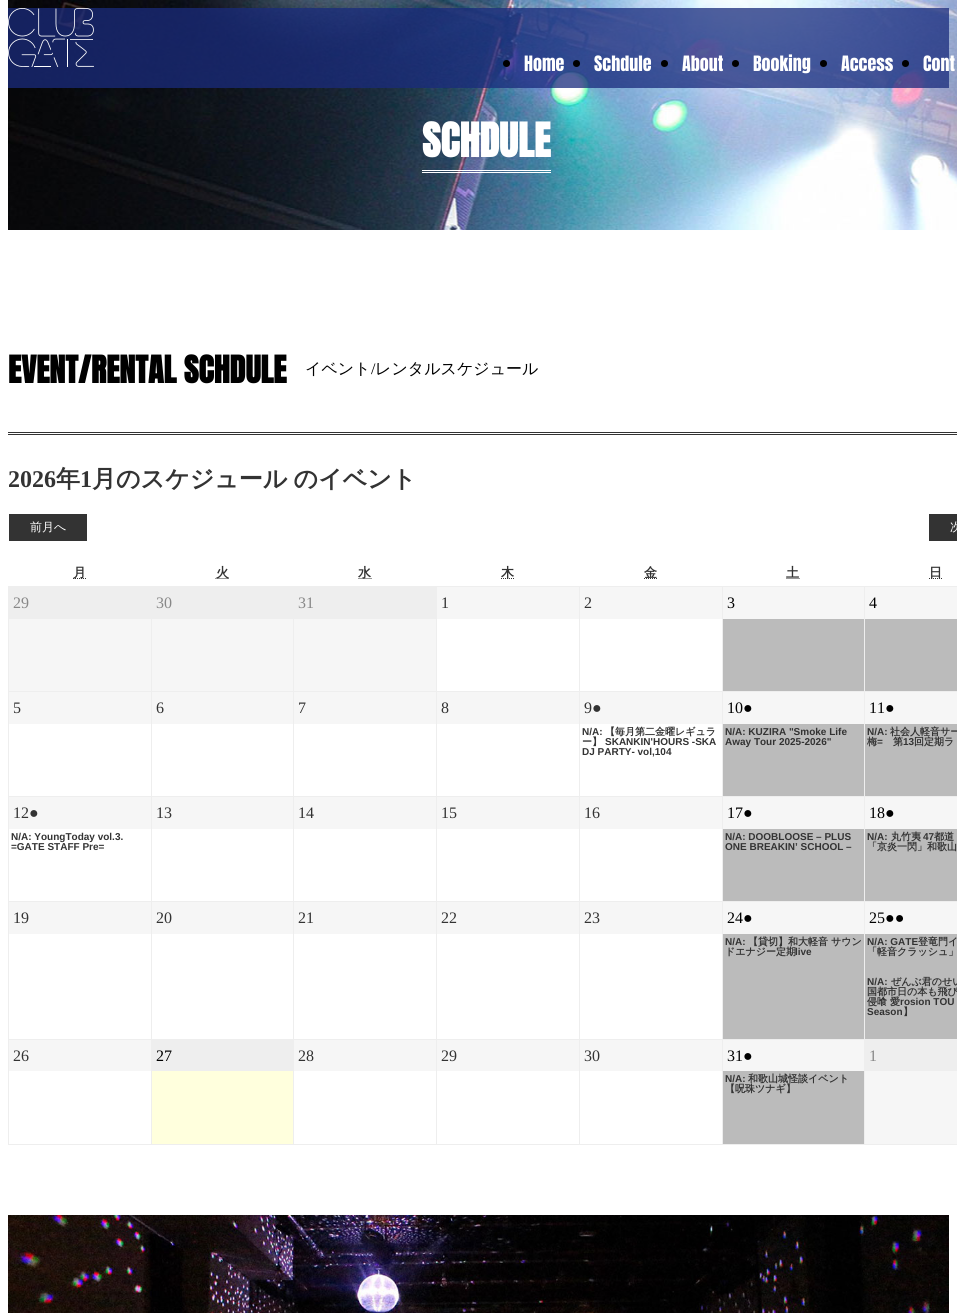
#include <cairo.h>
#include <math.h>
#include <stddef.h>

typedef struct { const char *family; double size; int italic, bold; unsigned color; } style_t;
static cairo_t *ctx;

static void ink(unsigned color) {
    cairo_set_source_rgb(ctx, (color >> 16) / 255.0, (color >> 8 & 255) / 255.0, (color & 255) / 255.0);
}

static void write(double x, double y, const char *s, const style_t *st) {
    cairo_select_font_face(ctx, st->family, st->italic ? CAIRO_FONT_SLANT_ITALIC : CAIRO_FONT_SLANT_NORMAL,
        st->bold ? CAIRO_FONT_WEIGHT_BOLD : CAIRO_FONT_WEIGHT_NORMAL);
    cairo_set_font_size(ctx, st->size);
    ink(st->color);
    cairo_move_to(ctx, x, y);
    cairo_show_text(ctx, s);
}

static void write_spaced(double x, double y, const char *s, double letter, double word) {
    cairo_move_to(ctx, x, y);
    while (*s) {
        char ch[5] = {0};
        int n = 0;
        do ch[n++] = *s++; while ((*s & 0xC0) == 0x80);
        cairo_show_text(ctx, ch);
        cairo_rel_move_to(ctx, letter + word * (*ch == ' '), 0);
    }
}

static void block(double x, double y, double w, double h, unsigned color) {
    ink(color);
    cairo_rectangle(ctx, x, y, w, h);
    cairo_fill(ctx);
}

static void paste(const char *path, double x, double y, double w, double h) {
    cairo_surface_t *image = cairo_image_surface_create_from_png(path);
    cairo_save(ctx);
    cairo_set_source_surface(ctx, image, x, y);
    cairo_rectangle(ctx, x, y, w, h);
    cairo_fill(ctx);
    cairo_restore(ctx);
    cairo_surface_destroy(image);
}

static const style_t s1 = {"Anton", 18, 0, 0, 0xffffff};
static const style_t s2 = {"Anton", 40, 0, 1, 0xffffff};
static const style_t s3 = {"Anton", 32, 0, 1, 0x000000};
static const style_t s4 = {"WenQuanYi Zen Hei Medium", 16, 0, 0, 0x000000};
static const style_t s5 = {"Liberation Serif", 16, 0, 0, 0x000000};
static const style_t s6 = {"Liberation Serif", 24, 0, 1, 0x333333};
static const style_t s7 = {"WenQuanYi Zen Hei", 24, 0, 1, 0x333333};
static const style_t s8 = {"WenQuanYi Zen Hei Medium", 12, 0, 0, 0xffffff};
static const style_t s9 = {"Liberation Serif", 16, 0, 0, 0x888888};
static const style_t s10 = {"Liberation Serif", 16, 0, 0, 0x333333};
static const style_t s11 = {"Liberation Sans", 10, 0, 1, 0x333333};
static const style_t s12 = {"WenQuanYi Zen Hei", 10, 0, 1, 0x333333};

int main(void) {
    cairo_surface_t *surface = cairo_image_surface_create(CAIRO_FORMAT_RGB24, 957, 1313);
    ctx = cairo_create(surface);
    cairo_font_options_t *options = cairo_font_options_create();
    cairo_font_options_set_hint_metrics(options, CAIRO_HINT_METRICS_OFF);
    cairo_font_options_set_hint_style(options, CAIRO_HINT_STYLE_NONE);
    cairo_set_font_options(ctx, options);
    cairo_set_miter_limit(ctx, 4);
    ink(0xffffff);
    cairo_paint(ctx);
    paste("pic2.png", 8, 0, 949, 230);
    cairo_set_source_rgba(ctx, 0.102, 0.169, 0.486, 0.75);
    cairo_rectangle(ctx, 8, 8, 941, 80);
    cairo_fill(ctx);
    paste("pic1.png", 8, 8, 86, 59);
    ink(0x000000);
    cairo_arc(ctx, 506.5, 63.5, 3.5, 0, 2 * M_PI);
    cairo_fill(ctx);
    write(524, 71, "Home", &s1);
    ink(0x000000);
    cairo_new_path(ctx);
    cairo_arc(ctx, 576.5, 63.5, 3.5, 0, 2 * M_PI);
    cairo_fill(ctx);
    write(594, 71, "Schdule", &s1);
    ink(0x000000);
    cairo_new_path(ctx);
    cairo_arc(ctx, 664.5, 63.5, 3.5, 0, 2 * M_PI);
    cairo_fill(ctx);
    write(682, 71, "About", &s1);
    ink(0x000000);
    cairo_new_path(ctx);
    cairo_arc(ctx, 735.5, 63.5, 3.5, 0, 2 * M_PI);
    cairo_fill(ctx);
    write(753, 71, "Booking", &s1);
    ink(0x000000);
    cairo_new_path(ctx);
    cairo_arc(ctx, 823.5, 63.5, 3.5, 0, 2 * M_PI);
    cairo_fill(ctx);
    write(841, 71, "Access", &s1);
    ink(0x000000);
    cairo_new_path(ctx);
    cairo_arc(ctx, 905.5, 63.5, 3.5, 0, 2 * M_PI);
    cairo_fill(ctx);
    write(923, 71, "Cont", &s1);
    block(422, 170, 129, 1, 0xffffff);
    block(422, 172, 129, 1, 0xffffff);
    write(422, 157, "SCHDULE", &s2);
    block(8, 432, 949, 1, 0x333333);
    block(8, 434, 949, 1, 0x333333);
    write(8, 383, "EVENT/RENTAL SCHDULE", &s3);
    write(305, 374, "イベント", &s4);
    write(371, 374, "/", &s5);
    write(375, 374, "レンタルスケジュール", &s4);
    write(8, 487, "2026", &s6);
    write(56, 487, "年", &s7);
    write(80, 487, "1", &s6);
    cairo_select_font_face(ctx, "WenQuanYi Zen Hei", CAIRO_FONT_SLANT_NORMAL, CAIRO_FONT_WEIGHT_BOLD);
    write_spaced(92, 487, "月のスケジュール のイベント", 0, -1);
    block(9, 514, 78, 27, 0x333333);
    write(30, 531, "前月へ", &s8);
    block(929, 514, 28, 27, 0x333333);
    write(950, 531, "次", &s8);
    cairo_new_path(ctx);
    cairo_move_to(ctx, 73, 578.5);
    cairo_line_to(ctx, 87, 578.5);
    ink(0x333333);
    cairo_set_line_width(ctx, 1);
    cairo_set_dash(ctx, (double[]){1, 1}, 2, 0);
    cairo_stroke(ctx);
    cairo_select_font_face(ctx, "WenQuanYi Zen Hei", CAIRO_FONT_SLANT_NORMAL, CAIRO_FONT_WEIGHT_BOLD);
    cairo_set_font_size(ctx, 13);
    write_spaced(73, 577, "月", 1, 0);
    cairo_new_path(ctx);
    cairo_move_to(ctx, 215.5, 578.5);
    cairo_line_to(ctx, 229.5, 578.5);
    cairo_stroke(ctx);
    write_spaced(216, 577, "火", 1, 0);
    cairo_new_path(ctx);
    cairo_move_to(ctx, 358.5, 578.5);
    cairo_line_to(ctx, 372, 578.5);
    cairo_stroke(ctx);
    write_spaced(358, 577, "水", 1, 0);
    cairo_new_path(ctx);
    cairo_move_to(ctx, 501, 578.5);
    cairo_line_to(ctx, 515, 578.5);
    cairo_stroke(ctx);
    write_spaced(501, 577, "木", 1, 0);
    write_spaced(644, 577, "金", 1, 0);
    cairo_new_path(ctx);
    cairo_move_to(ctx, 644, 578.5);
    cairo_line_to(ctx, 657.5, 578.5);
    cairo_stroke(ctx);
    write_spaced(786, 577, "土", 1, 0);
    cairo_new_path(ctx);
    cairo_move_to(ctx, 786.5, 578.5);
    cairo_line_to(ctx, 800.5, 578.5);
    cairo_stroke(ctx);
    cairo_new_path(ctx);
    cairo_move_to(ctx, 929, 578.5);
    cairo_line_to(ctx, 943, 578.5);
    cairo_stroke(ctx);
    write_spaced(929, 577, "日", 1, 0);
    block(9, 619, 142, 72, 0xf6f6f6);
    block(864, 586, 93, 1, 0xeeeeee);
    block(864, 691, 93, 1, 0xeeeeee);
    block(864, 796, 93, 1, 0xeeeeee);
    block(864, 901, 93, 1, 0xeeeeee);
    block(864, 1039, 93, 1, 0xeeeeee);
    block(864, 1144, 93, 1, 0xeeeeee);
    block(864, 1039, 1, 106, 0xeeeeee);
    block(722, 1039, 143, 1, 0xeeeeee);
    block(864, 901, 1, 139, 0xeeeeee);
    block(722, 901, 143, 1, 0xeeeeee);
    block(864, 796, 1, 106, 0xeeeeee);
    block(722, 796, 143, 1, 0xeeeeee);
    block(864, 691, 1, 106, 0xeeeeee);
    block(722, 691, 143, 1, 0xeeeeee);
    block(864, 586, 1, 106, 0xeeeeee);
    block(722, 586, 143, 1, 0xeeeeee);
    block(722, 1144, 143, 1, 0xeeeeee);
    block(722, 1039, 1, 106, 0xeeeeee);
    block(579, 1039, 144, 1, 0xeeeeee);
    block(722, 901, 1, 139, 0xeeeeee);
    block(579, 901, 144, 1, 0xeeeeee);
    block(722, 796, 1, 106, 0xeeeeee);
    block(579, 796, 144, 1, 0xeeeeee);
    block(722, 691, 1, 106, 0xeeeeee);
    block(579, 691, 144, 1, 0xeeeeee);
    block(722, 586, 1, 106, 0xeeeeee);
    block(579, 586, 144, 1, 0xeeeeee);
    block(579, 1144, 144, 1, 0xeeeeee);
    block(579, 1039, 1, 106, 0xeeeeee);
    block(436, 1039, 144, 1, 0xeeeeee);
    block(579, 901, 1, 139, 0xeeeeee);
    block(436, 901, 144, 1, 0xeeeeee);
    block(579, 796, 1, 106, 0xeeeeee);
    block(436, 796, 144, 1, 0xeeeeee);
    block(579, 691, 1, 106, 0xeeeeee);
    block(436, 691, 144, 1, 0xeeeeee);
    block(579, 586, 1, 106, 0xeeeeee);
    block(436, 586, 144, 1, 0xeeeeee);
    block(436, 1144, 144, 1, 0xeeeeee);
    block(436, 1039, 1, 106, 0xeeeeee);
    block(293, 1039, 144, 1, 0xeeeeee);
    block(436, 901, 1, 139, 0xeeeeee);
    block(293, 901, 144, 1, 0xeeeeee);
    block(436, 796, 1, 106, 0xeeeeee);
    block(293, 796, 144, 1, 0xeeeeee);
    block(436, 691, 1, 106, 0xeeeeee);
    block(293, 691, 144, 1, 0xeeeeee);
    block(436, 586, 1, 106, 0xeeeeee);
    block(293, 586, 144, 1, 0xeeeeee);
    block(293, 1144, 144, 1, 0xeeeeee);
    block(293, 1039, 1, 106, 0xeeeeee);
    block(151, 1039, 143, 1, 0xeeeeee);
    block(293, 901, 1, 139, 0xeeeeee);
    block(151, 901, 143, 1, 0xeeeeee);
    block(293, 796, 1, 106, 0xeeeeee);
    block(151, 796, 143, 1, 0xeeeeee);
    block(293, 691, 1, 106, 0xeeeeee);
    block(151, 691, 143, 1, 0xeeeeee);
    block(293, 586, 1, 106, 0xeeeeee);
    block(151, 586, 143, 1, 0xeeeeee);
    block(151, 1144, 143, 1, 0xeeeeee);
    block(151, 1039, 1, 106, 0xeeeeee);
    block(8, 1039, 144, 1, 0xeeeeee);
    block(151, 901, 1, 139, 0xeeeeee);
    block(8, 901, 144, 1, 0xeeeeee);
    block(151, 796, 1, 106, 0xeeeeee);
    block(8, 796, 144, 1, 0xeeeeee);
    block(151, 691, 1, 106, 0xeeeeee);
    block(8, 691, 144, 1, 0xeeeeee);
    block(151, 586, 1, 106, 0xeeeeee);
    block(8, 586, 144, 1, 0xeeeeee);
    block(8, 1144, 144, 1, 0xeeeeee);
    block(8, 1039, 1, 106, 0xeeeeee);
    block(8, 901, 1, 139, 0xeeeeee);
    block(8, 796, 1, 106, 0xeeeeee);
    block(8, 691, 1, 106, 0xeeeeee);
    block(8, 586, 1, 106, 0xeeeeee);
    block(9, 587, 142, 32, 0xeeeeee);
    write(13, 608, "29", &s9);
    block(152, 619, 141, 72, 0xf6f6f6);
    block(152, 587, 141, 32, 0xeeeeee);
    write(156, 608, "30", &s9);
    block(294, 619, 142, 72, 0xf6f6f6);
    block(294, 587, 142, 32, 0xeeeeee);
    write(298, 608, "31", &s9);
    block(437, 587, 142, 32, 0xf6f6f6);
    write(441, 608, "1", &s10);
    block(580, 587, 142, 32, 0xf6f6f6);
    write(584, 608, "2", &s10);
    block(723, 619, 141, 72, 0xbbbbbb);
    block(723, 587, 141, 32, 0xf6f6f6);
    write(727, 608, "3", &s5);
    block(865, 619, 92, 72, 0xbbbbbb);
    block(865, 587, 92, 32, 0xf6f6f6);
    write(869, 608, "4", &s5);
    block(9, 692, 142, 32, 0xf6f6f6);
    write(13, 713, "5", &s10);
    block(152, 692, 141, 32, 0xf6f6f6);
    write(156, 713, "6", &s10);
    block(294, 692, 142, 32, 0xf6f6f6);
    write(298, 713, "7", &s10);
    block(437, 692, 142, 32, 0xf6f6f6);
    write(441, 713, "8", &s10);
    block(580, 692, 142, 32, 0xf6f6f6);
    write(584, 713, "9●", &s10);
    write(582, 735, "N/A:", &s11);
    write(605, 735, "【毎月第二金曜レギュラ", &s12);
    write(582, 745, "ー】", &s12);
    write(605, 745, "SKANKIN'HOURS -SKA", &s11);
    write(582, 755, "DJ PARTY- vol,104", &s11);
    block(723, 724, 141, 72, 0xbbbbbb);
    block(723, 692, 141, 32, 0xf6f6f6);
    write(727, 713, "10●", &s5);
    write(725, 735, "N/A: KUZIRA \"Smoke Life", &s11);
    write(725, 745, "Away Tour 2025-2026\"", &s11);
    block(865, 724, 92, 72, 0xbbbbbb);
    block(865, 692, 92, 32, 0xf6f6f6);
    write(869, 713, "11●", &s5);
    write(867, 735, "N/A:", &s11);
    write(890, 735, "社会人軽音サー", &s12);
    write(867, 745, "梅", &s12);
    write(877, 745, "=", &s11);
    write(893, 745, "第", &s12);
    write(903, 745, "13", &s11);
    write(914, 745, "回定期ラ", &s12);
    block(9, 797, 142, 32, 0xf6f6f6);
    write(13, 818, "12●", &s10);
    write(11, 840, "N/A: YoungToday vol.3.", &s11);
    write(11, 850, "=GATE STAFF Pre=", &s11);
    block(152, 797, 141, 32, 0xf6f6f6);
    write(156, 818, "13", &s10);
    block(294, 797, 142, 32, 0xf6f6f6);
    write(298, 818, "14", &s10);
    block(437, 797, 142, 32, 0xf6f6f6);
    write(441, 818, "15", &s10);
    block(580, 797, 142, 32, 0xf6f6f6);
    write(584, 818, "16", &s10);
    block(723, 829, 141, 72, 0xbbbbbb);
    block(723, 797, 141, 32, 0xf6f6f6);
    write(727, 818, "17●", &s5);
    write(725, 840, "N/A: DOOBLOOSE – PLUS", &s11);
    write(725, 850, "ONE BREAKIN’ SCHOOL –", &s11);
    block(865, 829, 92, 72, 0xbbbbbb);
    block(865, 797, 92, 32, 0xf6f6f6);
    write(869, 818, "18●", &s5);
    write(867, 840, "N/A:", &s11);
    write(891, 840, "丸竹夷", &s12);
    write(923, 840, "47", &s11);
    write(934, 840, "都道", &s12);
    write(867, 850, "「京炎一閃」和歌山", &s12);
    block(9, 902, 142, 32, 0xf6f6f6);
    write(13, 923, "19", &s10);
    block(152, 902, 141, 32, 0xf6f6f6);
    write(156, 923, "20", &s10);
    block(294, 902, 142, 32, 0xf6f6f6);
    write(298, 923, "21", &s10);
    block(437, 902, 142, 32, 0xf6f6f6);
    write(441, 923, "22", &s10);
    block(580, 902, 142, 32, 0xf6f6f6);
    write(584, 923, "23", &s10);
    block(723, 934, 141, 105, 0xbbbbbb);
    block(723, 902, 141, 32, 0xf6f6f6);
    write(727, 923, "24●", &s5);
    write(725, 945, "N/A:", &s11);
    write(748, 945, "【貸切】和大軽音 サウン", &s12);
    write(725, 955, "ドエナジー定期", &s12);
    write(795, 955, "live", &s11);
    block(865, 934, 92, 105, 0xbbbbbb);
    block(865, 902, 92, 32, 0xf6f6f6);
    write(869, 923, "25●●", &s5);
    write(867, 945, "N/A: GATE", &s11);
    write(918, 945, "登竜門イ", &s12);
    write(867, 955, "「軽音クラッシュ」", &s12);
    write(867, 985, "N/A:", &s11);
    write(891, 985, "ぜんぶ君のせい", &s12);
    write(867, 995, "国都市日の本も飛び", &s12);
    write(867, 1005, "侵喰 愛", &s12);
    write(900, 1005, "rosion TOU", &s11);
    write(867, 1015, "Season", &s11);
    write(903, 1015, "】", &s12);
    block(9, 1040, 142, 31, 0xf6f6f6);
    write(13, 1061, "26", &s10);
    block(152, 1071, 141, 73, 0xffffdd);
    block(152, 1040, 141, 31, 0xeeeeee);
    write(156, 1061, "27", &s5);
    block(294, 1040, 142, 31, 0xf6f6f6);
    write(298, 1061, "28", &s10);
    block(437, 1040, 142, 31, 0xf6f6f6);
    write(441, 1061, "29", &s10);
    block(580, 1040, 142, 31, 0xf6f6f6);
    write(584, 1061, "30", &s10);
    block(723, 1071, 141, 73, 0xbbbbbb);
    block(723, 1040, 141, 31, 0xf6f6f6);
    write(727, 1061, "31●", &s5);
    write(725, 1082, "N/A:", &s11);
    write(748, 1082, "和歌山城怪談イベント", &s12);
    write(725, 1092, "【呪珠ツナギ】", &s12);
    block(865, 1071, 92, 73, 0xf6f6f6);
    block(865, 1040, 92, 31, 0xeeeeee);
    write(869, 1061, "1", &s9);
    paste("pic3.png", 8, 1215, 941, 98);
    cairo_surface_write_to_png(surface, "screenshot.png");
    cairo_font_options_destroy(options);
    cairo_destroy(ctx);
    cairo_surface_destroy(surface);
    return 0;
}
